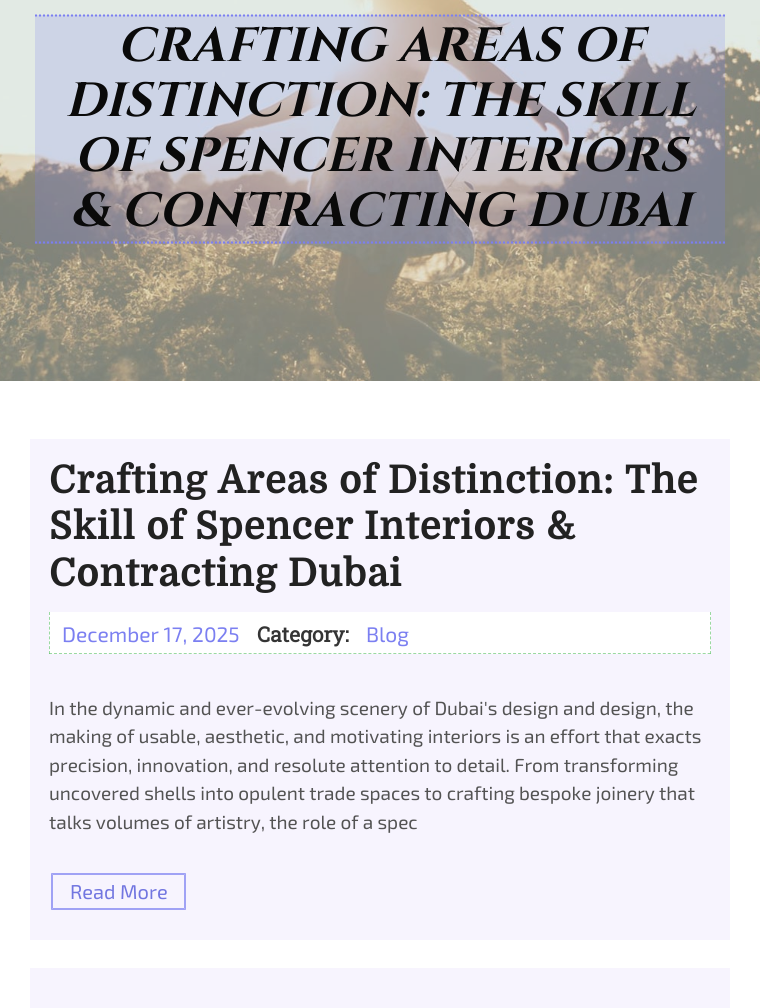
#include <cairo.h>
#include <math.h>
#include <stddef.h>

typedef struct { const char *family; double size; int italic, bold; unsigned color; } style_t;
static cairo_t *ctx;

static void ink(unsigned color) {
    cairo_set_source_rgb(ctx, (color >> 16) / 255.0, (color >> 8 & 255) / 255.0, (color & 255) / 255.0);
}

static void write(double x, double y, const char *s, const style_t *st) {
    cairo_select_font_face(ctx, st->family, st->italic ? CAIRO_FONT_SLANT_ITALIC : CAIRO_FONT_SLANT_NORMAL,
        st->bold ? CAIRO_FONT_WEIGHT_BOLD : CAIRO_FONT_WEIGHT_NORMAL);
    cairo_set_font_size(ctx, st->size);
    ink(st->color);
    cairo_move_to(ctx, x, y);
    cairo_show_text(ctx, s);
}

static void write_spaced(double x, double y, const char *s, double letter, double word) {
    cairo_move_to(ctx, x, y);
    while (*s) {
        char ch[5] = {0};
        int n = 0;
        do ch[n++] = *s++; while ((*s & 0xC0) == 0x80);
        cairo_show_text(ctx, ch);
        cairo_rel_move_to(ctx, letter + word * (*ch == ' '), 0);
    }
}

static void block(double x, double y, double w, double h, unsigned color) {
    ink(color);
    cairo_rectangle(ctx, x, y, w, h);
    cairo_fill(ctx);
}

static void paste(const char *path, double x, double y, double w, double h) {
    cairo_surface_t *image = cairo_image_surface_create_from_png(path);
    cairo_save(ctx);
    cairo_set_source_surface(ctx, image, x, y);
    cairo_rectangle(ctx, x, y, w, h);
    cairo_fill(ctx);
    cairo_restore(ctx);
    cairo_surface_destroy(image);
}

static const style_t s1 = {"Cinzel", 48, 1, 1, 0x0a0a0a};
static const style_t s2 = {"Exo 2", 21, 0, 0, 0x7b7ff1};
static const style_t s3 = {"Roboto Slab", 21, 0, 1, 0x343434};
static const style_t s4 = {"Exo 2", 19, 0, 0, 0x535353};
static const style_t s5 = {"Exo 2", 20, 0, 0, 0x7276e0};

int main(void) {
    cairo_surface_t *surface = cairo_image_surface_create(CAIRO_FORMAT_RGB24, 760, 1008);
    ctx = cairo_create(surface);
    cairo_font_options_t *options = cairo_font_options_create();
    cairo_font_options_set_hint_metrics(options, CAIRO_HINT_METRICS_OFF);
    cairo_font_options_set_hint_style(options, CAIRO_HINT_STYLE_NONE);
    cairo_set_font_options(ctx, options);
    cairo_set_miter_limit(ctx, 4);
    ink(0xffffff);
    cairo_paint(ctx);
    paste("pic1.png", 0, 0, 760, 381);
    cairo_set_source_rgba(ctx, 0.482, 0.498, 0.945, 0.2);
    cairo_rectangle(ctx, 35, 15, 690, 229);
    cairo_fill(ctx);
    cairo_new_path(ctx);
    cairo_move_to(ctx, 35, 15.5);
    cairo_line_to(ctx, 725, 15.5);
    ink(0x7b7ff1);
    cairo_set_dash(ctx, (double[]){2, 2}, 2, 0);
    cairo_stroke(ctx);
    cairo_new_path(ctx);
    cairo_move_to(ctx, 35, 242.5);
    cairo_line_to(ctx, 725, 242.5);
    cairo_stroke(ctx);
    write(117, 61, "CRAFTING AREAS OF", &s1);
    write(65, 116, "DISTINCTION: THE SKILL", &s1);
    write(74, 171, "OF SPENCER INTERIORS", &s1);
    write(70, 226, "& CONTRACTING DUBAI", &s1);
    block(30, 439, 700, 501, 0xf7f4fe);
    cairo_select_font_face(ctx, "Domine", CAIRO_FONT_SLANT_NORMAL, CAIRO_FONT_WEIGHT_BOLD);
    cairo_set_font_size(ctx, 38);
    ink(0x222222);
    write_spaced(49, 493, "Crafting Areas of Distinction: The", 1, 0);
    write_spaced(49, 539, "Skill of Spencer Interiors &", 1, 0);
    write_spaced(49, 586, "Contracting Dubai", 1, 0);
    block(49, 612, 662, 42, 0xffffff);
    cairo_new_path(ctx);
    cairo_move_to(ctx, 710.5, 612);
    cairo_line_to(ctx, 710.5, 654);
    ink(0x9bd9a1);
    cairo_set_line_width(ctx, 1);
    cairo_set_dash(ctx, (double[]){3, 1.88}, 2, 0);
    cairo_stroke(ctx);
    cairo_new_path(ctx);
    cairo_move_to(ctx, 49, 653.5);
    cairo_line_to(ctx, 711, 653.5);
    cairo_set_source_rgba(ctx, 0.345, 0.749, 0.388, 0.6);
    cairo_set_dash(ctx, (double[]){3, 1.99}, 2, 0);
    cairo_stroke(ctx);
    cairo_new_path(ctx);
    cairo_move_to(ctx, 49.5, 612);
    cairo_line_to(ctx, 49.5, 654);
    cairo_set_dash(ctx, (double[]){3, 1.88}, 2, 0);
    cairo_stroke(ctx);
    write(62, 642, "December 17, 2025", &s2);
    write(257, 642, "Category:", &s3);
    write(366, 642, "Blog", &s2);
    write(49, 715, "In the dynamic and ever-evolving scenery of Dubai's design and design, the", &s4);
    write(49, 743, "making of usable, aesthetic, and motivating interiors is an effort that exacts", &s4);
    write(49, 772, "precision, innovation, and resolute attention to detail. From transforming", &s4);
    write(49, 800, "uncovered shells into opulent trade spaces to crafting bespoke joinery that", &s4);
    write(49, 829, "talks volumes of artistry, the role of a spec", &s4);
    write(70, 899, "Read More", &s5);
    ink(0xa0a2f5);
    cairo_new_path(ctx);
    cairo_move_to(ctx, 51, 873);
    cairo_line_to(ctx, 168, 873);
    cairo_line_to(ctx, 168, 875);
    cairo_line_to(ctx, 53, 875);
    cairo_close_path(ctx);
    cairo_fill(ctx);
    cairo_new_path(ctx);
    cairo_move_to(ctx, 168, 910);
    cairo_line_to(ctx, 51, 910);
    cairo_line_to(ctx, 53, 908);
    cairo_line_to(ctx, 168, 908);
    cairo_close_path(ctx);
    cairo_fill(ctx);
    cairo_set_source_rgba(ctx, 0.482, 0.498, 0.945, 0.7);
    cairo_new_path(ctx);
    cairo_move_to(ctx, 51, 910);
    cairo_line_to(ctx, 51, 873);
    cairo_line_to(ctx, 53, 875);
    cairo_line_to(ctx, 53, 908);
    cairo_close_path(ctx);
    cairo_fill(ctx);
    ink(0xa0a2f5);
    cairo_new_path(ctx);
    cairo_move_to(ctx, 168, 873);
    cairo_line_to(ctx, 186, 873);
    cairo_line_to(ctx, 184, 875);
    cairo_line_to(ctx, 168, 875);
    cairo_close_path(ctx);
    cairo_fill(ctx);
    cairo_set_source_rgba(ctx, 0.482, 0.498, 0.945, 0.7);
    cairo_new_path(ctx);
    cairo_move_to(ctx, 186, 873);
    cairo_line_to(ctx, 186, 910);
    cairo_line_to(ctx, 184, 908);
    cairo_line_to(ctx, 184, 875);
    cairo_close_path(ctx);
    cairo_fill(ctx);
    cairo_new_path(ctx);
    cairo_move_to(ctx, 186, 910);
    cairo_line_to(ctx, 168, 910);
    cairo_line_to(ctx, 168, 908);
    cairo_line_to(ctx, 184, 908);
    cairo_close_path(ctx);
    cairo_fill(ctx);
    block(30, 968, 700, 40, 0xf7f4fe);
    cairo_surface_write_to_png(surface, "screenshot.png");
    cairo_font_options_destroy(options);
    cairo_destroy(ctx);
    cairo_surface_destroy(surface);
    return 0;
}
